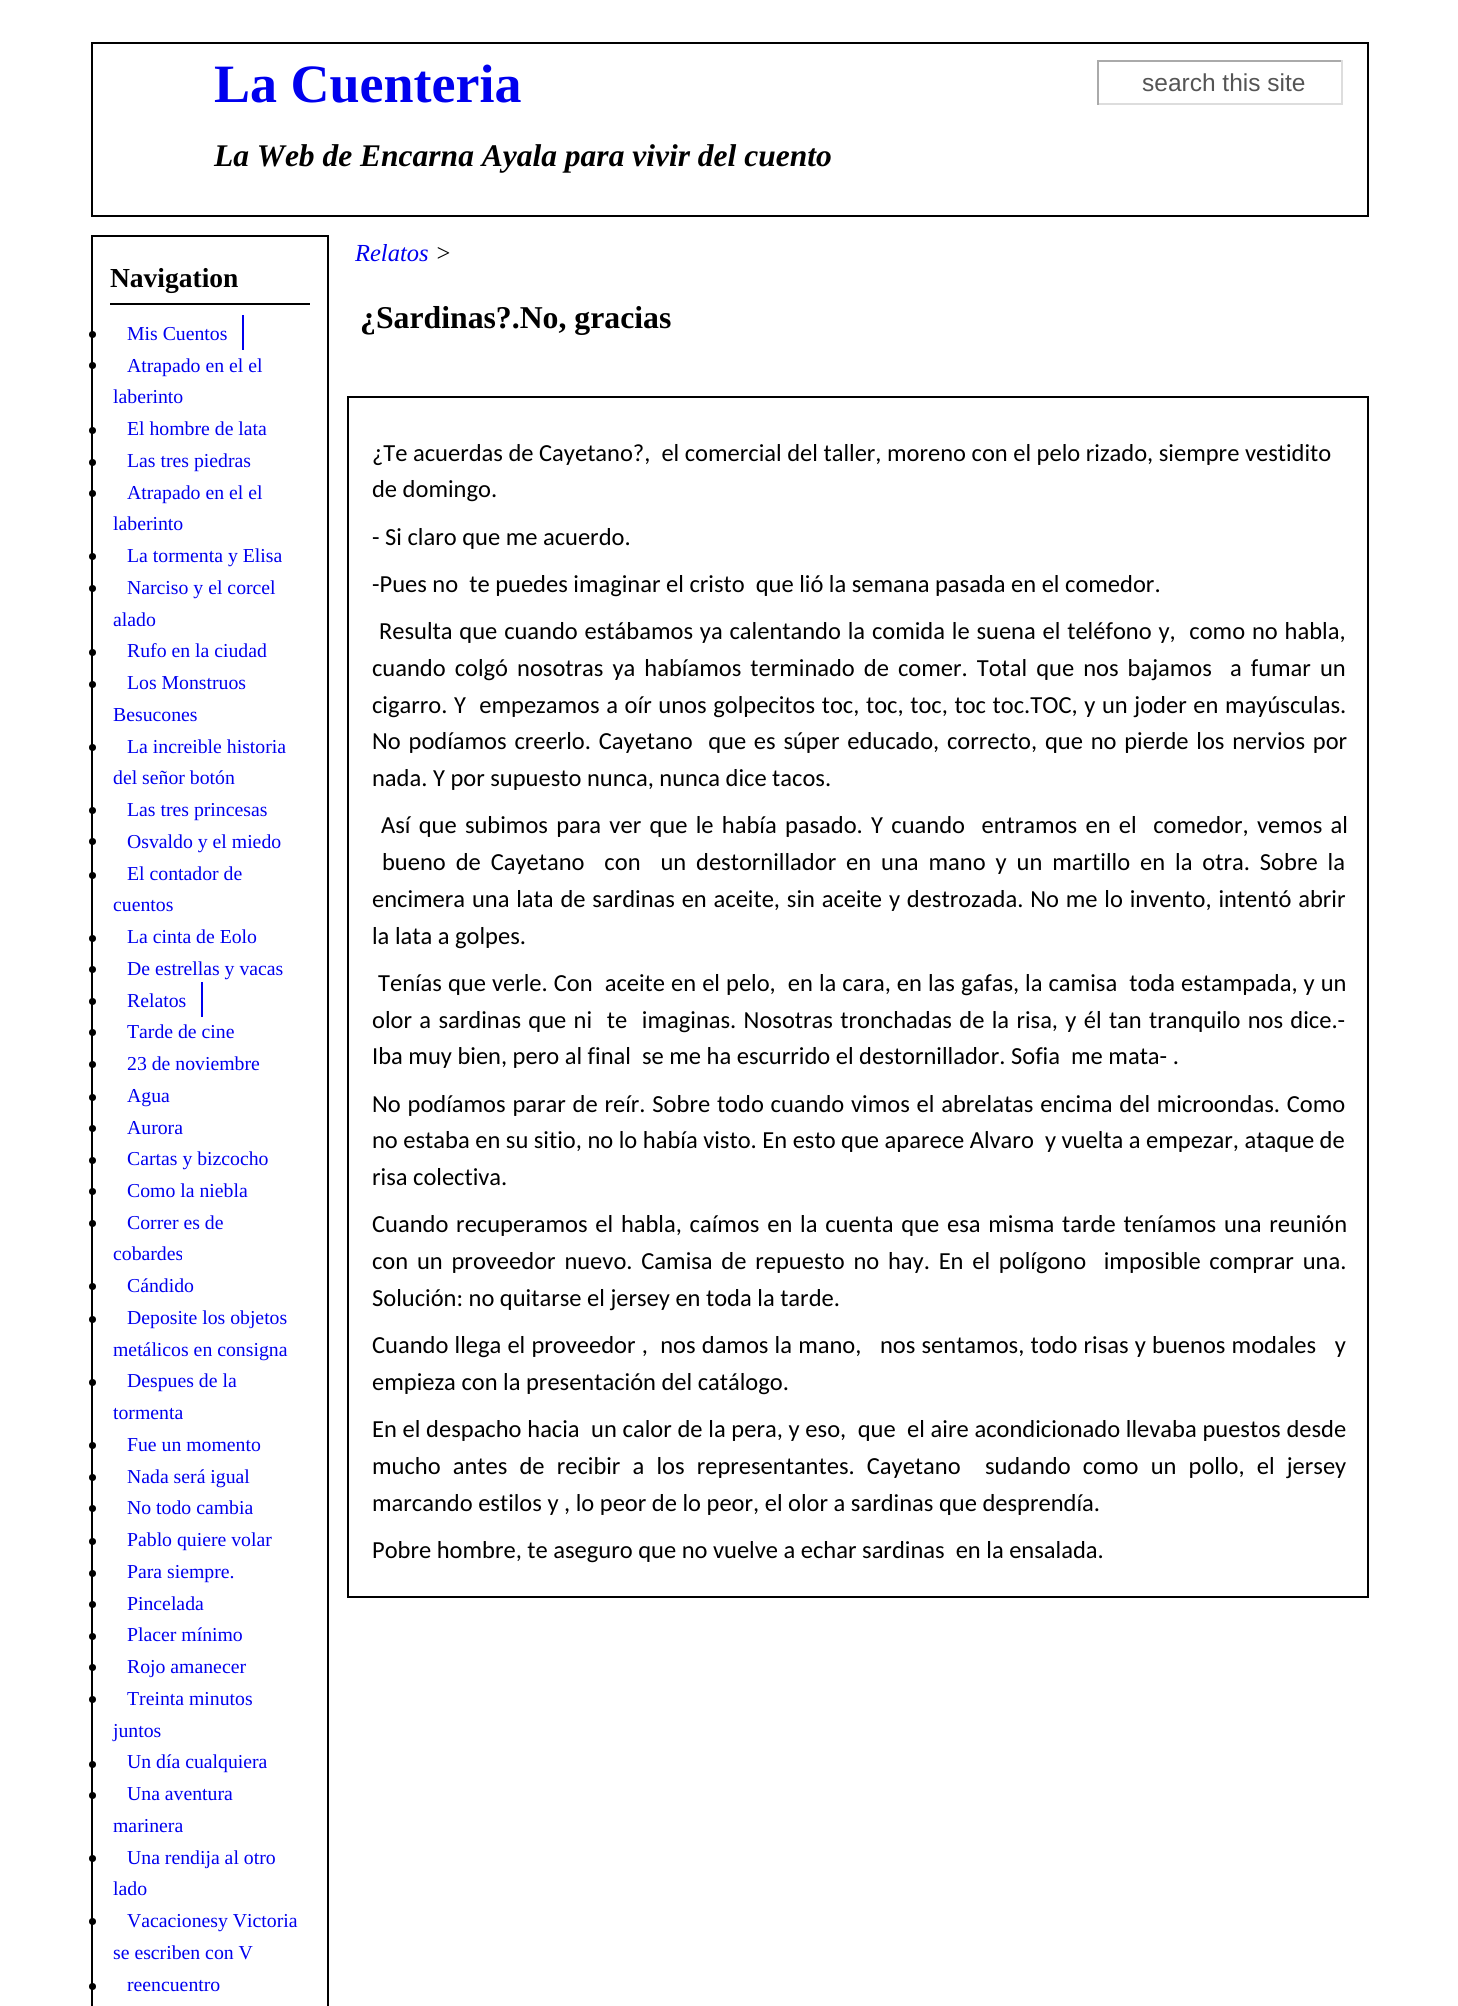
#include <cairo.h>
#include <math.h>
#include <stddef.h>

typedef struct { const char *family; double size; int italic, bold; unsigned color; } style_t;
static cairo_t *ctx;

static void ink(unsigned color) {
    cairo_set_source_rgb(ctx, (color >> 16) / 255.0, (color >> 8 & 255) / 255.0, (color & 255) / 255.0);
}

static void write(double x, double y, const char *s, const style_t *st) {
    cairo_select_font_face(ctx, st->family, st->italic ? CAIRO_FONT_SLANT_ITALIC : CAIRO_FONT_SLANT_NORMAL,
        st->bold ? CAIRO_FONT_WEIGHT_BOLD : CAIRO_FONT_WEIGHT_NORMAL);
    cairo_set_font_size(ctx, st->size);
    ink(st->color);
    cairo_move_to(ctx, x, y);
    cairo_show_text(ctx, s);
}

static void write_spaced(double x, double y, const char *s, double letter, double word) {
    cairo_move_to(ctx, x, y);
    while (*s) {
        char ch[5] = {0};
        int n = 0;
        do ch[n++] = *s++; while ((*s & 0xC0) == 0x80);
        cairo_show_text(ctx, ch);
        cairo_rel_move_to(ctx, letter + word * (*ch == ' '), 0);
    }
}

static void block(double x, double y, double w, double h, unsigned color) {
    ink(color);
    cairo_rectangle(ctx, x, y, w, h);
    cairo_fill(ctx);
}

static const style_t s1 = {"Liberation Serif", 54, 0, 1, 0x0000ee};
static const style_t s2 = {"Liberation Serif", 31.5, 1, 1, 0x000000};
static const style_t s3 = {"Liberation Sans", 24.5, 0, 0, 0x555555};
static const style_t s4 = {"Liberation Serif", 27.5, 0, 1, 0x000000};
static const style_t s5 = {"Liberation Serif", 19.75, 0, 0, 0x0000ee};
static const style_t s6 = {"Liberation Serif", 24.5, 1, 0, 0x0000ee};
static const style_t s7 = {"Liberation Serif", 24.5, 1, 0, 0x000000};
static const style_t s8 = {"Liberation Serif", 31.75, 0, 1, 0x000000};
static const style_t s9 = {"Carlito", 24.5, 0, 0, 0x000000};

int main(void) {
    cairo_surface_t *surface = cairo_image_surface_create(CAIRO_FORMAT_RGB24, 1458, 2006);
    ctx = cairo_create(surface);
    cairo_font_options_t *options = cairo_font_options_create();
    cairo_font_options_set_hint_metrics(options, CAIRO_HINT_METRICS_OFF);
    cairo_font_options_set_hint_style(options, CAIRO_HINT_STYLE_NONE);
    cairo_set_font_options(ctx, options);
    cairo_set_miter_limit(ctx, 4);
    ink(0xffffff);
    cairo_paint(ctx);
    cairo_rectangle(ctx, 92, 43, 1276, 173);
    ink(0x000000);
    cairo_stroke(ctx);
    write(214, 102, "La Cuenteria", &s1);
    write(214, 166, "La Web de Encarna Ayala para vivir del cuento", &s2);
    block(1097, 60, 245, 2, 0xaaaaaa);
    block(1341, 60, 2, 45, 0xdddddd);
    block(1097, 103, 245, 2, 0xdddddd);
    block(1097, 60, 2, 45, 0xaaaaaa);
    write(1142, 91, "search this site", &s3);
    cairo_rectangle(ctx, 92, 236, 236, 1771);
    ink(0x000000);
    cairo_stroke(ctx);
    block(110, 303, 200, 2, 0x000000);
    write(110, 287, "Navigation", &s4);
    cairo_new_path(ctx);
    cairo_arc(ctx, 92.5, 334.5, 3.5, 0, 2 * M_PI);
    cairo_fill(ctx);
    write(127, 340, "Mis Cuentos", &s5);
    block(242, 315, 2, 35, 0x0000ee);
    ink(0x000000);
    cairo_new_path(ctx);
    cairo_arc(ctx, 92.5, 365.5, 3.5, 0, 2 * M_PI);
    cairo_fill(ctx);
    write(127, 372, "Atrapado en el el", &s5);
    write(113, 403, "laberinto", &s5);
    ink(0x000000);
    cairo_new_path(ctx);
    cairo_arc(ctx, 92.5, 430.5, 3.5, 0, 2 * M_PI);
    cairo_fill(ctx);
    write(127, 435, "El hombre de lata", &s5);
    ink(0x000000);
    cairo_new_path(ctx);
    cairo_arc(ctx, 92.5, 462.5, 3.5, 0, 2 * M_PI);
    cairo_fill(ctx);
    write(127, 467, "Las tres piedras", &s5);
    ink(0x000000);
    cairo_new_path(ctx);
    cairo_arc(ctx, 92.5, 493.5, 3.5, 0, 2 * M_PI);
    cairo_fill(ctx);
    write(127, 499, "Atrapado en el el", &s5);
    write(113, 530, "laberinto", &s5);
    ink(0x000000);
    cairo_new_path(ctx);
    cairo_arc(ctx, 92.5, 556.5, 3.5, 0, 2 * M_PI);
    cairo_fill(ctx);
    write(127, 562, "La tormenta y Elisa", &s5);
    ink(0x000000);
    cairo_new_path(ctx);
    cairo_arc(ctx, 92.5, 588.5, 3.5, 0, 2 * M_PI);
    cairo_fill(ctx);
    write(127, 594, "Narciso y el corcel", &s5);
    write(113, 626, "alado", &s5);
    ink(0x000000);
    cairo_new_path(ctx);
    cairo_arc(ctx, 92.5, 652.5, 3.5, 0, 2 * M_PI);
    cairo_fill(ctx);
    write(127, 657, "Rufo en la ciudad", &s5);
    ink(0x000000);
    cairo_new_path(ctx);
    cairo_arc(ctx, 92.5, 684.5, 3.5, 0, 2 * M_PI);
    cairo_fill(ctx);
    write(127, 689, "Los Monstruos", &s5);
    write(113, 721, "Besucones", &s5);
    ink(0x000000);
    cairo_new_path(ctx);
    cairo_arc(ctx, 92.5, 747.5, 3.5, 0, 2 * M_PI);
    cairo_fill(ctx);
    write(127, 753, "La increible historia", &s5);
    write(113, 784, "del señor botón", &s5);
    ink(0x000000);
    cairo_new_path(ctx);
    cairo_arc(ctx, 92.5, 810.5, 3.5, 0, 2 * M_PI);
    cairo_fill(ctx);
    write(127, 816, "Las tres princesas", &s5);
    ink(0x000000);
    cairo_new_path(ctx);
    cairo_arc(ctx, 92.5, 841.5, 3.5, 0, 2 * M_PI);
    cairo_fill(ctx);
    write(127, 848, "Osvaldo y el miedo", &s5);
    ink(0x000000);
    cairo_new_path(ctx);
    cairo_arc(ctx, 92.5, 875.5, 3.5, 0, 2 * M_PI);
    cairo_fill(ctx);
    write(127, 880, "El contador de", &s5);
    write(113, 911, "cuentos", &s5);
    ink(0x000000);
    cairo_new_path(ctx);
    cairo_arc(ctx, 92.5, 938.5, 3.5, 0, 2 * M_PI);
    cairo_fill(ctx);
    write(127, 943, "La cinta de Eolo", &s5);
    ink(0x000000);
    cairo_new_path(ctx);
    cairo_arc(ctx, 92.5, 969.5, 3.5, 0, 2 * M_PI);
    cairo_fill(ctx);
    write(127, 975, "De estrellas y vacas", &s5);
    ink(0x000000);
    cairo_new_path(ctx);
    cairo_arc(ctx, 92.5, 1001.5, 3.5, 0, 2 * M_PI);
    cairo_fill(ctx);
    write(127, 1007, "Relatos", &s5);
    block(201, 982, 2, 35, 0x0000ee);
    ink(0x000000);
    cairo_new_path(ctx);
    cairo_arc(ctx, 92.5, 1032.5, 3.5, 0, 2 * M_PI);
    cairo_fill(ctx);
    write(127, 1038, "Tarde de cine", &s5);
    ink(0x000000);
    cairo_new_path(ctx);
    cairo_arc(ctx, 92.5, 1064.5, 3.5, 0, 2 * M_PI);
    cairo_fill(ctx);
    write(127, 1070, "23 de noviembre", &s5);
    ink(0x000000);
    cairo_new_path(ctx);
    cairo_arc(ctx, 92.5, 1097.5, 3.5, 0, 2 * M_PI);
    cairo_fill(ctx);
    write(127, 1102, "Agua", &s5);
    ink(0x000000);
    cairo_new_path(ctx);
    cairo_arc(ctx, 92.5, 1128.5, 3.5, 0, 2 * M_PI);
    cairo_fill(ctx);
    write(127, 1134, "Aurora", &s5);
    ink(0x000000);
    cairo_new_path(ctx);
    cairo_arc(ctx, 92.5, 1160.5, 3.5, 0, 2 * M_PI);
    cairo_fill(ctx);
    write(127, 1165, "Cartas y bizcocho", &s5);
    ink(0x000000);
    cairo_new_path(ctx);
    cairo_arc(ctx, 92.5, 1191.5, 3.5, 0, 2 * M_PI);
    cairo_fill(ctx);
    write(127, 1197, "Como la niebla", &s5);
    ink(0x000000);
    cairo_new_path(ctx);
    cairo_arc(ctx, 92.5, 1223.5, 3.5, 0, 2 * M_PI);
    cairo_fill(ctx);
    write(127, 1229, "Correr es de", &s5);
    write(113, 1260, "cobardes", &s5);
    ink(0x000000);
    cairo_new_path(ctx);
    cairo_arc(ctx, 92.5, 1286.5, 3.5, 0, 2 * M_PI);
    cairo_fill(ctx);
    write(127, 1292, "Cándido", &s5);
    ink(0x000000);
    cairo_new_path(ctx);
    cairo_arc(ctx, 92.5, 1319.5, 3.5, 0, 2 * M_PI);
    cairo_fill(ctx);
    write(127, 1324, "Deposite los objetos", &s5);
    write(113, 1356, "metálicos en consigna", &s5);
    ink(0x000000);
    cairo_new_path(ctx);
    cairo_arc(ctx, 92.5, 1382.5, 3.5, 0, 2 * M_PI);
    cairo_fill(ctx);
    write(127, 1387, "Despues de la", &s5);
    write(113, 1419, "tormenta", &s5);
    ink(0x000000);
    cairo_new_path(ctx);
    cairo_arc(ctx, 92.5, 1445.5, 3.5, 0, 2 * M_PI);
    cairo_fill(ctx);
    write(127, 1451, "Fue un momento", &s5);
    ink(0x000000);
    cairo_new_path(ctx);
    cairo_arc(ctx, 92.5, 1477.5, 3.5, 0, 2 * M_PI);
    cairo_fill(ctx);
    write(127, 1483, "Nada será igual", &s5);
    ink(0x000000);
    cairo_new_path(ctx);
    cairo_arc(ctx, 92.5, 1508.5, 3.5, 0, 2 * M_PI);
    cairo_fill(ctx);
    write(127, 1514, "No todo cambia", &s5);
    ink(0x000000);
    cairo_new_path(ctx);
    cairo_arc(ctx, 92.5, 1541.5, 3.5, 0, 2 * M_PI);
    cairo_fill(ctx);
    write(127, 1546, "Pablo quiere volar", &s5);
    ink(0x000000);
    cairo_new_path(ctx);
    cairo_arc(ctx, 92.5, 1573.5, 3.5, 0, 2 * M_PI);
    cairo_fill(ctx);
    write(127, 1578, "Para siempre.", &s5);
    ink(0x000000);
    cairo_new_path(ctx);
    cairo_arc(ctx, 92.5, 1604.5, 3.5, 0, 2 * M_PI);
    cairo_fill(ctx);
    write(127, 1610, "Pincelada", &s5);
    ink(0x000000);
    cairo_new_path(ctx);
    cairo_arc(ctx, 92.5, 1636.5, 3.5, 0, 2 * M_PI);
    cairo_fill(ctx);
    write(127, 1641, "Placer mínimo", &s5);
    ink(0x000000);
    cairo_new_path(ctx);
    cairo_arc(ctx, 92.5, 1667.5, 3.5, 0, 2 * M_PI);
    cairo_fill(ctx);
    write(127, 1673, "Rojo amanecer", &s5);
    ink(0x000000);
    cairo_new_path(ctx);
    cairo_arc(ctx, 92.5, 1699.5, 3.5, 0, 2 * M_PI);
    cairo_fill(ctx);
    write(127, 1705, "Treinta minutos", &s5);
    write(113, 1737, "juntos", &s5);
    ink(0x000000);
    cairo_new_path(ctx);
    cairo_arc(ctx, 92.5, 1764.5, 3.5, 0, 2 * M_PI);
    cairo_fill(ctx);
    write(127, 1768, "Un día cualquiera", &s5);
    ink(0x000000);
    cairo_new_path(ctx);
    cairo_arc(ctx, 92.5, 1795.5, 3.5, 0, 2 * M_PI);
    cairo_fill(ctx);
    write(127, 1800, "Una aventura", &s5);
    write(113, 1832, "marinera", &s5);
    ink(0x000000);
    cairo_new_path(ctx);
    cairo_arc(ctx, 92.5, 1858.5, 3.5, 0, 2 * M_PI);
    cairo_fill(ctx);
    write(127, 1864, "Una rendija al otro", &s5);
    write(113, 1895, "lado", &s5);
    ink(0x000000);
    cairo_new_path(ctx);
    cairo_arc(ctx, 92.5, 1921.5, 3.5, 0, 2 * M_PI);
    cairo_fill(ctx);
    write(127, 1927, "Vacacionesy Victoria", &s5);
    write(113, 1959, "se escriben con V", &s5);
    ink(0x000000);
    cairo_new_path(ctx);
    cairo_arc(ctx, 92.5, 1986.5, 3.5, 0, 2 * M_PI);
    cairo_fill(ctx);
    write(127, 1991, "reencuentro", &s5);
    write(355, 261, "Relatos", &s6);
    write(435, 261, ">", &s7);
    write(360, 328, "¿Sardinas?.No, gracias", &s8);
    cairo_rectangle(ctx, 348, 397, 1020, 1200);
    cairo_stroke(ctx);
    write(372, 461, "¿Te acuerdas de Cayetano?,  el comercial del taller, moreno con el pelo rizado, siempre vestidito", &s9);
    write(372, 497, "de domingo.", &s9);
    write(372, 545, "- Si claro que me acuerdo.", &s9);
    write(372, 592, "-Pues no  te puedes imaginar el cristo  que lió la semana pasada en el comedor.", &s9);
    write_spaced(379, 639, "Resulta que cuando estábamos ya calentando la comida le suena el teléfono y,  como no habla,", 0, 1.3);
    write_spaced(372, 676, "cuando colgó nosotras ya habíamos terminado de comer. Total que nos bajamos  a fumar un", 0, 3.5);
    write_spaced(372, 713, "cigarro. Y  empezamos a oír unos golpecitos toc, toc, toc, toc toc.TOC, y un joder en mayúsculas.", 0, 1.1);
    write_spaced(372, 749, "No podíamos creerlo. Cayetano  que es súper educado, correcto, que no pierde los nervios por", 0, 2.25);
    write(372, 786, "nada. Y por supuesto nunca, nunca dice tacos.", &s9);
    write_spaced(381, 833, "Así que subimos para ver que le había pasado. Y cuando  entramos en el  comedor, vemos al", 0, 2.75);
    write_spaced(382, 870, "bueno de Cayetano  con  un destornillador en una mano y un martillo en la otra. Sobre la", 0, 4.4);
    write_spaced(372, 907, "encimera una lata de sardinas en aceite, sin aceite y destrozada. No me lo invento, intentó abrir", 0, 1.3);
    write(372, 944, "la lata a golpes.", &s9);
    write_spaced(378, 991, "Tenías que verle. Con  aceite en el pelo,  en la cara, en las gafas, la camisa  toda estampada, y un", 0, 0.5);
    write_spaced(372, 1028, "olor a sardinas que ni  te  imaginas. Nosotras tronchadas de la risa, y él tan tranquilo nos dice.-", 0, 1.8);
    write(372, 1064, "Iba muy bien, pero al final  se me ha escurrido el destornillador. Sofia  me mata- .", &s9);
    write_spaced(372, 1112, "No podíamos parar de reír. Sobre todo cuando vimos el abrelatas encima del microondas. Como", 0, 1.25);
    write(372, 1148, "no estaba en su sitio, no lo había visto. En esto que aparece Alvaro  y vuelta a empezar, ataque de", &s9);
    write(372, 1185, "risa colectiva.", &s9);
    write_spaced(372, 1232, "Cuando recuperamos el habla, caímos en la cuenta que esa misma tarde teníamos una reunión", 0, 2.25);
    write_spaced(372, 1269, "con un proveedor nuevo. Camisa de repuesto no hay. En el polígono  imposible comprar una.", 0, 3.25);
    write(372, 1306, "Solución: no quitarse el jersey en toda la tarde.", &s9);
    write_spaced(372, 1353, "Cuando llega el proveedor ,  nos damos la mano,   nos sentamos, todo risas y buenos modales   y", 0, 0.65);
    write(372, 1390, "empieza con la presentación del catálogo.", &s9);
    write_spaced(372, 1437, "En el despacho hacia  un calor de la pera, y eso,  que  el aire acondicionado llevaba puestos desde", 0, 0.2);
    write_spaced(372, 1474, "mucho antes de recibir a los representantes. Cayetano  sudando como un pollo, el jersey", 0, 6.6);
    write(372, 1511, "marcando estilos y , lo peor de lo peor, el olor a sardinas que desprendía.", &s9);
    write(372, 1558, "Pobre hombre, te aseguro que no vuelve a echar sardinas  en la ensalada.", &s9);
    cairo_surface_write_to_png(surface, "screenshot.png");
    cairo_font_options_destroy(options);
    cairo_destroy(ctx);
    cairo_surface_destroy(surface);
    return 0;
}
